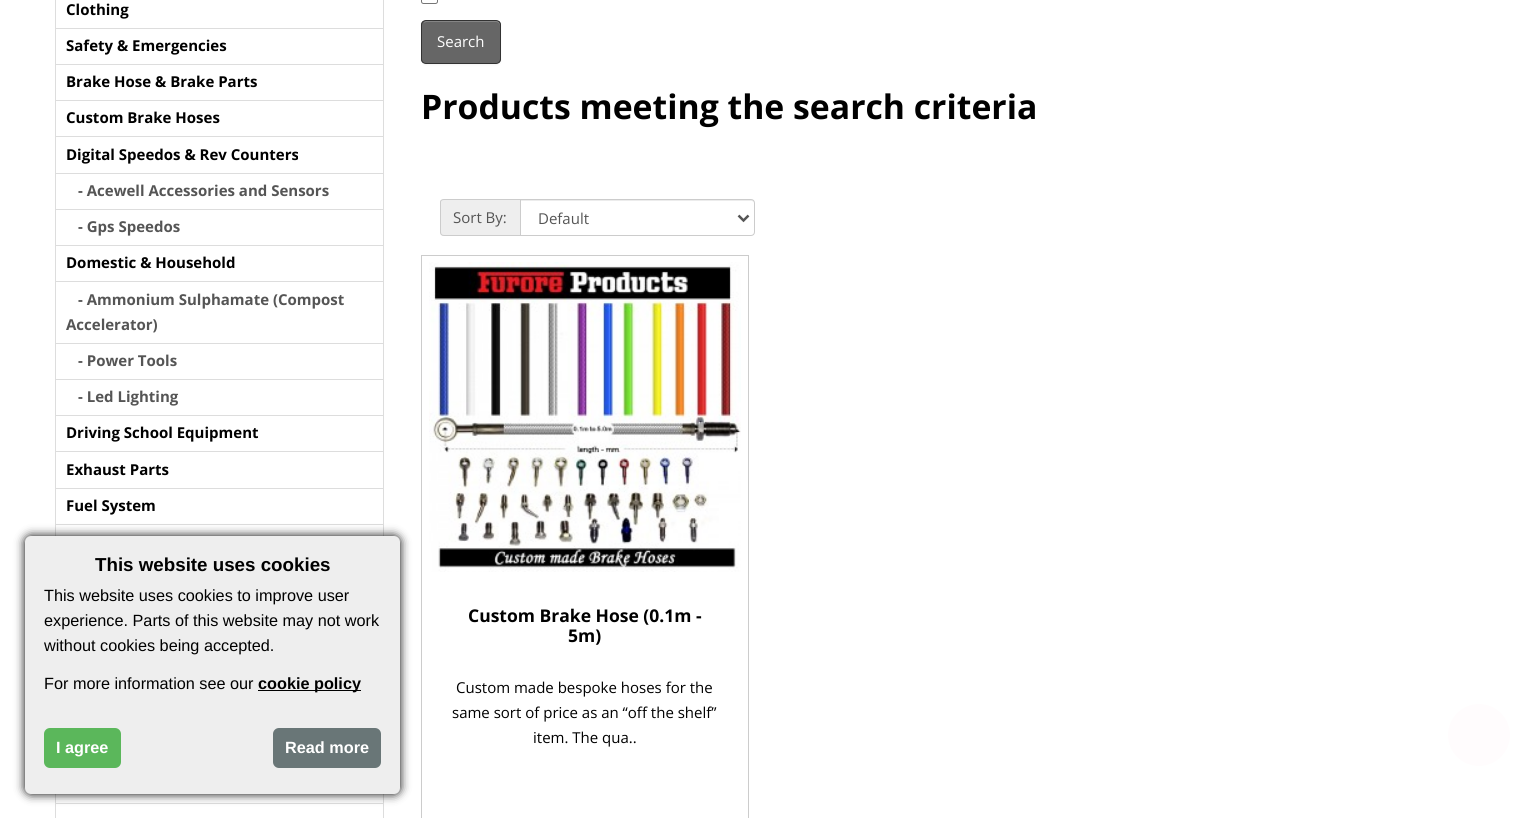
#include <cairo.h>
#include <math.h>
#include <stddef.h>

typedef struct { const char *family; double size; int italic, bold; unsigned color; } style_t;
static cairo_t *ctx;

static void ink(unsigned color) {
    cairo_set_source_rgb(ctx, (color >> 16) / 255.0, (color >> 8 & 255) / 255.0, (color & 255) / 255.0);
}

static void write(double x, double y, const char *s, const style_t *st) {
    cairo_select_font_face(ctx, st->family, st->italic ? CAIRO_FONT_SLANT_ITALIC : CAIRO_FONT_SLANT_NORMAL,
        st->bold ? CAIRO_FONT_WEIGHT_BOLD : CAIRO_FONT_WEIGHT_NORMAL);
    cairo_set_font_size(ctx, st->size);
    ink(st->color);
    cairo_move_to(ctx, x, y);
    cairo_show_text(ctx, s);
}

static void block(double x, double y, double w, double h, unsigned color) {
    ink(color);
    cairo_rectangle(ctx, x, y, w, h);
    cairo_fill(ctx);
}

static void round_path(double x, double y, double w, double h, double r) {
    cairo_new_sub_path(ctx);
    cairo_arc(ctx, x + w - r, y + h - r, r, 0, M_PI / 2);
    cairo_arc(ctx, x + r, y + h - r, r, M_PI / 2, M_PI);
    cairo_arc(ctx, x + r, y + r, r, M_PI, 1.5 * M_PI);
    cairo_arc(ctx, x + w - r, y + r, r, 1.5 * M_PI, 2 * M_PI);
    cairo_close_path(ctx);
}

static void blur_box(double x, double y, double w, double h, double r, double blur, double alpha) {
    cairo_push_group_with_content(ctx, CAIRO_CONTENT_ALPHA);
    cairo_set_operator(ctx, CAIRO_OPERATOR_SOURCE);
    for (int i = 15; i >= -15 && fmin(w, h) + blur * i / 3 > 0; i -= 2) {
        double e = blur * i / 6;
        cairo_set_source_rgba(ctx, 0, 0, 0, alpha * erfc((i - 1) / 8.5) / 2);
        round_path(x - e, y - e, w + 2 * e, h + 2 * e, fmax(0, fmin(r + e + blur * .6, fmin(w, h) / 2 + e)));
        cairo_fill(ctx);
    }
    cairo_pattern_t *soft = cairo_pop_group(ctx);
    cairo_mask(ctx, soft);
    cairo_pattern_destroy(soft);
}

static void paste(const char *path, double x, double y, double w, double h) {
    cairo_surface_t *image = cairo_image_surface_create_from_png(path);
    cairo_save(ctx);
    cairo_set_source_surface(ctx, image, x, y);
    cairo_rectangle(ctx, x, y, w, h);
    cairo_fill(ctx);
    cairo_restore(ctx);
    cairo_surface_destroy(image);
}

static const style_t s1 = {"Open Sans", 15, 0, 1, 0x000000};
static const style_t s2 = {"Open Sans", 15, 0, 1, 0x555555};
static const style_t s3 = {"Open Sans", 15, 0, 0, 0xffffff};
static const style_t s4 = {"Open Sans", 33.75, 0, 1, 0x000000};
static const style_t s5 = {"Open Sans", 15, 0, 0, 0x555555};
static const style_t s6 = {"Open Sans", 17.5, 0, 1, 0x000000};
static const style_t s7 = {"Open Sans", 15, 0, 0, 0x000000};
static const style_t s8 = {"Liberation Sans", 18.75, 0, 1, 0x000000};
static const style_t s9 = {"Liberation Sans", 16.25, 0, 0, 0x000000};
static const style_t s10 = {"Liberation Sans", 16.25, 0, 1, 0x000000};
static const style_t s11 = {"Liberation Sans", 16.25, 0, 1, 0xffffff};

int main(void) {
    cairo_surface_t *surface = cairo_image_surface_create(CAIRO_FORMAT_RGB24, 1535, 818);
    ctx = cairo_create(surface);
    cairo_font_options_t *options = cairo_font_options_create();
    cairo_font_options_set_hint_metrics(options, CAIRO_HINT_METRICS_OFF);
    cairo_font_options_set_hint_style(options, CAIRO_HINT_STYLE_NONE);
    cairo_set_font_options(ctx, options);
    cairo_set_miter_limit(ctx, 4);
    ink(0xffffff);
    cairo_paint(ctx);
    cairo_rectangle(ctx, 55.5, -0.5, 328, 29);
    ink(0xdddddd);
    cairo_set_line_width(ctx, 1);
    cairo_stroke(ctx);
    write(66, 15, "Clothing", &s1);
    cairo_rectangle(ctx, 55.5, 28.5, 328, 36);
    ink(0xdddddd);
    cairo_stroke(ctx);
    write(66, 51, "Safety & Emergencies", &s1);
    cairo_rectangle(ctx, 55.5, 64.5, 328, 36);
    ink(0xdddddd);
    cairo_stroke(ctx);
    write(66, 87, "Brake Hose & Brake Parts", &s1);
    cairo_rectangle(ctx, 55.5, 100.5, 328, 37);
    ink(0xdddddd);
    cairo_stroke(ctx);
    write(66, 123, "Custom Brake Hoses", &s1);
    block(56, 137, 327, 1, 0xffffff);
    cairo_rectangle(ctx, 55.5, 136.5, 328, 37);
    ink(0xdddddd);
    cairo_stroke(ctx);
    write(66, 160, "Digital Speedos & Rev Counters", &s1);
    cairo_rectangle(ctx, 55.5, 173.5, 328, 36);
    ink(0xdddddd);
    cairo_stroke(ctx);
    write(78, 196, "- Acewell Accessories and Sensors", &s2);
    cairo_rectangle(ctx, 55.5, 209.5, 328, 36);
    ink(0xdddddd);
    cairo_stroke(ctx);
    write(78, 232, "- Gps Speedos", &s2);
    cairo_rectangle(ctx, 55.5, 245.5, 328, 37);
    ink(0xdddddd);
    cairo_stroke(ctx);
    write(66, 268, "Domestic & Household", &s1);
    block(56, 282, 327, 1, 0xffffff);
    cairo_rectangle(ctx, 55.5, 281.5, 328, 62);
    ink(0xdddddd);
    cairo_stroke(ctx);
    write(78, 305, "- Ammonium Sulphamate (Compost", &s2);
    write(66, 330, "Accelerator)", &s2);
    cairo_rectangle(ctx, 55.5, 343.5, 328, 36);
    ink(0xdddddd);
    cairo_stroke(ctx);
    write(78, 366, "- Power Tools", &s2);
    cairo_rectangle(ctx, 55.5, 379.5, 328, 36);
    ink(0xdddddd);
    cairo_stroke(ctx);
    write(78, 402, "- Led Lighting", &s2);
    cairo_rectangle(ctx, 55.5, 415.5, 328, 37);
    ink(0xdddddd);
    cairo_stroke(ctx);
    write(66, 438, "Driving School Equipment", &s1);
    block(56, 452, 327, 1, 0xffffff);
    cairo_rectangle(ctx, 55.5, 451.5, 328, 37);
    ink(0xdddddd);
    cairo_stroke(ctx);
    write(66, 475, "Exhaust Parts", &s1);
    cairo_rectangle(ctx, 55.5, 488.5, 328, 36);
    ink(0xdddddd);
    cairo_stroke(ctx);
    write(66, 511, "Fuel System", &s1);
    cairo_rectangle(ctx, 55.5, 524.5, 328, 36);
    ink(0xdddddd);
    cairo_stroke(ctx);
    cairo_rectangle(ctx, 55.5, 766.5, 328, 37);
    cairo_stroke(ctx);
    cairo_rectangle(ctx, 55.5, 803.5, 328, 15);
    cairo_stroke(ctx);
    round_path(421.5, -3.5, 16, 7, 2);
    ink(0x767676);
    cairo_stroke(ctx);
    ink(0x000000);
    blur_box(421, 21, 80, 44, 5, 1, 0.05);
    cairo_save(ctx);
    round_path(421, 20, 80, 44, 5);
    cairo_clip(ctx);
    block(421, 21, 80, 42, 0x666666);
    cairo_restore(ctx);
    ink(0x858585);
    cairo_new_path(ctx);
    cairo_move_to(ctx, 426, 22);
    cairo_line_to(ctx, 496, 22);
    cairo_curve_to(ctx, 498, 22, 500, 24, 500, 26);
    cairo_curve_to(ctx, 500, 24, 500, 22, 498, 21);
    cairo_line_to(ctx, 426, 21);
    cairo_curve_to(ctx, 425, 21, 424, 22, 424, 23);
    cairo_close_path(ctx);
    cairo_fill(ctx);
    round_path(421.5, 20.5, 79, 43, 4.5);
    ink(0x333333);
    cairo_stroke(ctx);
    write(437, 47, "Search", &s3);
    write(421, 119, "Products meeting the search criteria", &s4);
    ink(0xeeeeee);
    cairo_new_path(ctx);
    cairo_move_to(ctx, 444, 199);
    cairo_line_to(ctx, 520, 199);
    cairo_line_to(ctx, 520, 236);
    cairo_line_to(ctx, 444, 236);
    cairo_curve_to(ctx, 442, 236, 440, 234, 440, 232);
    cairo_line_to(ctx, 440, 203);
    cairo_curve_to(ctx, 440, 201, 442, 199, 444, 199);
    cairo_close_path(ctx);
    cairo_fill(ctx);
    ink(0xcccccc);
    cairo_set_fill_rule(ctx, CAIRO_FILL_RULE_EVEN_ODD);
    cairo_new_path(ctx);
    cairo_move_to(ctx, 444, 199);
    cairo_line_to(ctx, 520, 199);
    cairo_line_to(ctx, 520, 236);
    cairo_line_to(ctx, 444, 236);
    cairo_curve_to(ctx, 442, 236, 440, 235, 440, 232);
    cairo_line_to(ctx, 440, 202);
    cairo_curve_to(ctx, 440, 200, 442, 199, 444, 199);
    cairo_close_path(ctx);
    cairo_move_to(ctx, 444, 200);
    cairo_line_to(ctx, 520, 200);
    cairo_line_to(ctx, 520, 235);
    cairo_line_to(ctx, 444, 235);
    cairo_curve_to(ctx, 442, 235, 441, 234, 441, 232);
    cairo_line_to(ctx, 441, 202);
    cairo_curve_to(ctx, 441, 201, 442, 200, 444, 200);
    cairo_close_path(ctx);
    cairo_fill(ctx);
    write(453, 223, "Sort By:", &s5);
    ink(0xececec);
    cairo_set_fill_rule(ctx, CAIRO_FILL_RULE_WINDING);
    cairo_new_path(ctx);
    cairo_move_to(ctx, 521, 201);
    cairo_line_to(ctx, 752, 201);
    cairo_line_to(ctx, 754, 202);
    cairo_line_to(ctx, 754, 204);
    cairo_curve_to(ctx, 754, 202, 754, 200, 752, 200);
    cairo_line_to(ctx, 521, 200);
    cairo_close_path(ctx);
    cairo_fill(ctx);
    cairo_new_path(ctx);
    cairo_move_to(ctx, 520.5, 199.5);
    cairo_line_to(ctx, 751, 199.5);
    cairo_curve_to(ctx, 753, 199.5, 754.5, 201, 754.5, 203);
    cairo_line_to(ctx, 754.5, 232);
    cairo_curve_to(ctx, 754.5, 234, 753, 235.5, 751, 235.5);
    cairo_line_to(ctx, 520.5, 235.5);
    cairo_close_path(ctx);
    ink(0xcccccc);
    cairo_stroke(ctx);
    cairo_new_path(ctx);
    cairo_move_to(ctx, 738.5, 215.5);
    cairo_line_to(ctx, 743.5, 220.5);
    cairo_line_to(ctx, 748.5, 215.5);
    ink(0x555555);
    cairo_set_line_width(ctx, 2.5);
    cairo_stroke(ctx);
    write(538, 224, "Default", &s5);
    cairo_rectangle(ctx, 421.5, 255.5, 327, 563);
    ink(0xcccccc);
    cairo_set_line_width(ctx, 1);
    cairo_stroke(ctx);
    paste("pic1.png", 429, 262, 312, 310);
    write(468, 622, "Custom Brake Hose (0.1m -", &s6);
    write(568, 642, "5m)", &s6);
    write(456, 693, "Custom made bespoke hoses for the", &s7);
    write(452, 718, "same sort of price as an “off the shelf”", &s7);
    write(533, 743, "item. The qua..", &s7);
    ink(0xfffcfd);
    cairo_new_path(ctx);
    cairo_arc(ctx, 1479, 735, 31, 0, 2 * M_PI);
    cairo_fill(ctx);
    ink(0x000000);
    blur_box(25, 536, 375, 258, 6, 5, 1);
    ink(0xeeeeee);
    round_path(25, 536, 375, 258, 6);
    cairo_fill(ctx);
    write(95, 571, "This website uses cookies", &s8);
    write(44, 601, "This website uses cookies to improve user", &s9);
    write(44, 626, "experience. Parts of this website may not work", &s9);
    write(44, 651, "without cookies being accepted.", &s9);
    write(44, 689, "For more information see our", &s9);
    block(258, 690, 103, 1, 0x000000);
    write(258, 689, "cookie policy", &s10);
    ink(0x5bb75b);
    round_path(44, 728, 77, 40, 6);
    cairo_fill(ctx);
    write(56, 753, "I agree", &s11);
    ink(0x697677);
    round_path(273, 728, 108, 40, 6);
    cairo_fill(ctx);
    write(285, 753, "Read more", &s11);
    cairo_surface_write_to_png(surface, "screenshot.png");
    cairo_font_options_destroy(options);
    cairo_destroy(ctx);
    cairo_surface_destroy(surface);
    return 0;
}
